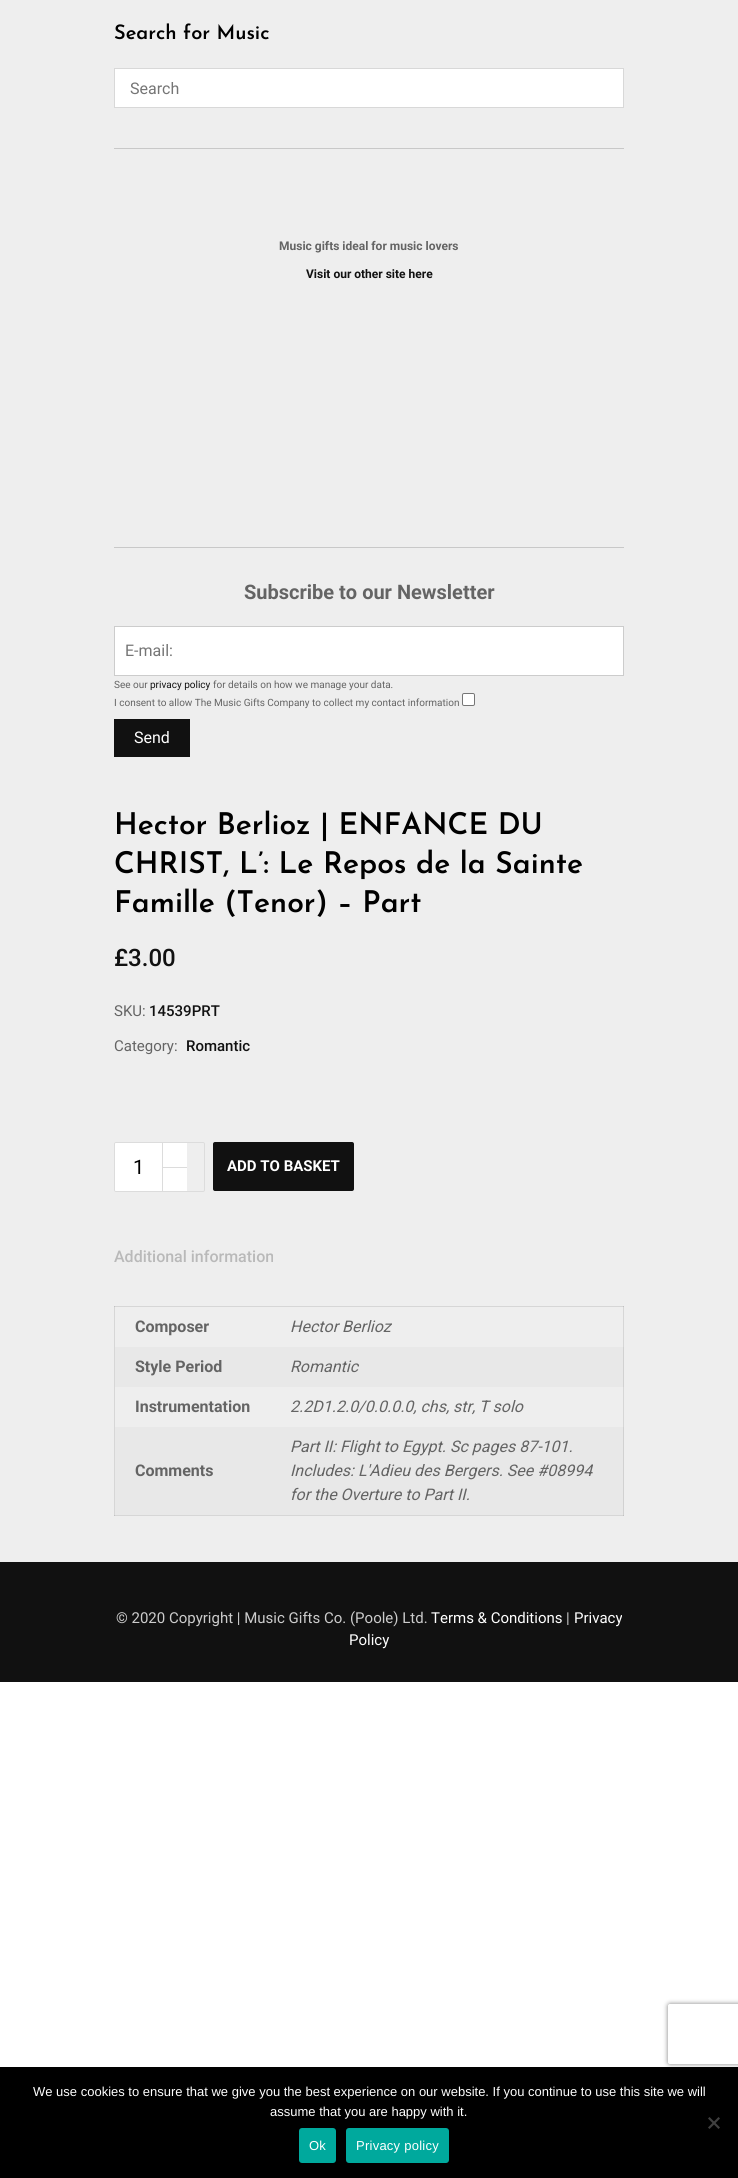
#include <cairo.h>
#include <math.h>
#include <stddef.h>

typedef struct { const char *family; double size; int italic, bold; unsigned color; } style_t;
static cairo_t *ctx;

static void ink(unsigned color) {
    cairo_set_source_rgb(ctx, (color >> 16) / 255.0, (color >> 8 & 255) / 255.0, (color & 255) / 255.0);
}

static void write(double x, double y, const char *s, const style_t *st) {
    cairo_select_font_face(ctx, st->family, st->italic ? CAIRO_FONT_SLANT_ITALIC : CAIRO_FONT_SLANT_NORMAL,
        st->bold ? CAIRO_FONT_WEIGHT_BOLD : CAIRO_FONT_WEIGHT_NORMAL);
    cairo_set_font_size(ctx, st->size);
    ink(st->color);
    cairo_move_to(ctx, x, y);
    cairo_show_text(ctx, s);
}

static void write_spaced(double x, double y, const char *s, double letter, double word) {
    cairo_move_to(ctx, x, y);
    while (*s) {
        char ch[5] = {0};
        int n = 0;
        do ch[n++] = *s++; while ((*s & 0xC0) == 0x80);
        cairo_show_text(ctx, ch);
        cairo_rel_move_to(ctx, letter + word * (*ch == ' '), 0);
    }
}

static void block(double x, double y, double w, double h, unsigned color) {
    ink(color);
    cairo_rectangle(ctx, x, y, w, h);
    cairo_fill(ctx);
}

static void round_path(double x, double y, double w, double h, double r) {
    cairo_new_sub_path(ctx);
    cairo_arc(ctx, x + w - r, y + h - r, r, 0, M_PI / 2);
    cairo_arc(ctx, x + r, y + h - r, r, M_PI / 2, M_PI);
    cairo_arc(ctx, x + r, y + r, r, M_PI, 1.5 * M_PI);
    cairo_arc(ctx, x + w - r, y + r, r, 1.5 * M_PI, 2 * M_PI);
    cairo_close_path(ctx);
}

static void blur_box(double x, double y, double w, double h, double r, double blur, double alpha) {
    cairo_push_group_with_content(ctx, CAIRO_CONTENT_ALPHA);
    cairo_set_operator(ctx, CAIRO_OPERATOR_SOURCE);
    for (int i = 15; i >= -15 && fmin(w, h) + blur * i / 3 > 0; i -= 2) {
        double e = blur * i / 6;
        cairo_set_source_rgba(ctx, 0, 0, 0, alpha * erfc((i - 1) / 8.5) / 2);
        round_path(x - e, y - e, w + 2 * e, h + 2 * e, fmax(0, fmin(r + e + blur * .6, fmin(w, h) / 2 + e)));
        cairo_fill(ctx);
    }
    cairo_pattern_t *soft = cairo_pop_group(ctx);
    cairo_mask(ctx, soft);
    cairo_pattern_destroy(soft);
}

static const style_t s1 = {"Josefin Sans SemiBold", 20, 0, 0, 0x000000};
static const style_t s2 = {"Roboto", 16, 0, 0, 0x757575};
static const style_t s3 = {"Roboto", 12, 0, 1, 0x646464};
static const style_t s4 = {"Roboto", 12, 0, 1, 0x111111};
static const style_t s5 = {"Roboto", 20, 0, 1, 0x646464};
static const style_t s6 = {"Roboto", 10, 0, 0, 0x646464};
static const style_t s7 = {"Roboto", 10, 0, 0, 0x111111};
static const style_t s8 = {"Roboto", 16, 0, 0, 0xffffff};
static const style_t s9 = {"Josefin Sans SemiBold", 30, 0, 0, 0x000000};
static const style_t s10 = {"Roboto Medium", 24, 0, 0, 0x111111};
static const style_t s11 = {"Roboto", 15, 0, 0, 0x646464};
static const style_t s12 = {"Roboto Medium", 15, 0, 0, 0x111111};
static const style_t s13 = {"Roboto", 20, 0, 0, 0x000000};
static const style_t s14 = {"Roboto", 15, 0, 1, 0xffffff};
static const style_t s15 = {"Roboto Medium", 16, 0, 0, 0xb9b9b9};
static const style_t s16 = {"Roboto", 16, 0, 1, 0x646464};
static const style_t s17 = {"Roboto", 16, 1, 0, 0x646464};
static const style_t s18 = {"Roboto", 15, 0, 0, 0xcccccc};
static const style_t s19 = {"Roboto", 15, 0, 0, 0xffffff};
static const style_t s20 = {"Liberation Sans", 13, 0, 0, 0xffffff};

int main(void) {
    cairo_surface_t *surface = cairo_image_surface_create(CAIRO_FORMAT_RGB24, 738, 2178);
    ctx = cairo_create(surface);
    cairo_font_options_t *options = cairo_font_options_create();
    cairo_font_options_set_hint_metrics(options, CAIRO_HINT_METRICS_OFF);
    cairo_font_options_set_hint_style(options, CAIRO_HINT_STYLE_NONE);
    cairo_set_font_options(ctx, options);
    cairo_set_miter_limit(ctx, 4);
    ink(0xffffff);
    cairo_paint(ctx);
    block(0, 0, 738, 1562, 0xeeeeee);
    block(114, 1306, 1, 210, 0xd6d6d6);
    block(114, 1515, 510, 1, 0xd6d6d6);
    block(114, 1515, 1, 1, 0xc1c1c1);
    block(623, 1306, 1, 121, 0xd6d6d6);
    block(623, 1515, 1, 1, 0xc1c1c1);
    write(114, 39, "Search for Music", &s1);
    ink(0xffffff);
    cairo_rectangle(ctx, 114.5, 68.5, 509, 39);
    cairo_fill_preserve(ctx);
    ink(0xd8d8d8);
    cairo_set_line_width(ctx, 1);
    cairo_stroke(ctx);
    write(130, 94, "Search", &s2);
    block(114, 148, 510, 1, 0xc8c8c8);
    write(279, 250, "Music gifts ideal for music lovers", &s3);
    write(306, 278, "Visit our other site here", &s4);
    block(114, 547, 510, 1, 0xc8c8c8);
    write(244, 599, "Subscribe to our Newsletter", &s5);
    ink(0xffffff);
    cairo_rectangle(ctx, 114.5, 626.5, 509, 49);
    cairo_fill_preserve(ctx);
    ink(0xcccccc);
    cairo_stroke(ctx);
    write(125, 656, "E-mail:", &s2);
    write(114, 688, "See our", &s6);
    write(150, 688, "privacy policy", &s7);
    write(213, 688, "for details on how we manage your data.", &s6);
    write(114, 706, "I consent to allow The Music Gifts Company to collect my contact information", &s6);
    ink(0xffffff);
    round_path(462.5, 693.5, 12, 12, 1.5);
    cairo_fill_preserve(ctx);
    ink(0x767676);
    cairo_stroke(ctx);
    block(114, 719, 76, 38, 0x111111);
    write(134, 743, "Send", &s8);
    write(114, 834, "Hector Berlioz | ENFANCE DU", &s9);
    write(114, 873, "CHRIST, L’: Le Repos de la Sainte", &s9);
    write(114, 912, "Famille (Tenor) – Part", &s9);
    write(114, 966, "£3.00", &s10);
    write(114, 1016, "SKU:", &s11);
    write(149, 1016, "14539PRT", &s12);
    write(114, 1051, "Category:", &s11);
    write(186, 1051, "Romantic", &s12);
    round_path(114.5, 1142.5, 90, 49, 1.5);
    ink(0xdcdcdc);
    cairo_stroke(ctx);
    ink(0xffffff);
    cairo_new_path(ctx);
    cairo_move_to(ctx, 116, 1143);
    cairo_line_to(ctx, 163, 1143);
    cairo_line_to(ctx, 163, 1191);
    cairo_line_to(ctx, 116, 1191);
    cairo_curve_to(ctx, 115.5, 1191, 115, 1190.5, 115, 1190);
    cairo_line_to(ctx, 115, 1144);
    cairo_curve_to(ctx, 115, 1143.5, 115.5, 1143, 116, 1143);
    cairo_close_path(ctx);
    cairo_fill(ctx);
    write(133, 1174, "1", &s13);
    block(163, 1143, 24, 24, 0xffffff);
    block(162, 1143, 1, 24, 0xdcdcdc);
    block(163, 1168, 24, 23, 0xffffff);
    block(162, 1167, 25, 1, 0xdcdcdc);
    block(162, 1167, 1, 24, 0xdcdcdc);
    ink(0x111111);
    round_path(213, 1142, 141, 49, 2);
    cairo_fill(ctx);
    write(227, 1171, "ADD TO BASKET", &s14);
    write(114, 1262, "Additional information", &s15);
    block(114, 1306, 510, 1, 0xd6d6d6);
    block(114, 1306, 1, 1, 0xc1c1c1);
    block(623, 1306, 1, 1, 0xc1c1c1);
    write(135, 1332, "Composer", &s16);
    write(290, 1332, "Hector Berlioz", &s17);
    block(115, 1347, 508, 40, 0xe8e8e8);
    write(135, 1372, "Style Period", &s16);
    block(623, 1347, 1, 40, 0xd1d1d1);
    write(290, 1372, "Romantic", &s17);
    write(135, 1412, "Instrumentation", &s16);
    write(290, 1412, "2.2D1.2.0/0.0.0.0, chs, str, T solo", &s17);
    block(115, 1427, 508, 88, 0xe8e8e8);
    write(135, 1476, "Comments", &s16);
    block(623, 1427, 1, 88, 0xd1d1d1);
    write(290, 1452, "Part II: Flight to Egypt. Sc pages 87-101.", &s17);
    write(290, 1476, "Includes: L'Adieu des Bergers. See #08994", &s17);
    write(290, 1500, "for the Overture to Part II.", &s17);
    block(0, 1562, 738, 120, 0x111111);
    write(116, 1623, "© 2020 Copyright | Music Gifts Co. (Poole) Ltd.", &s18);
    write(431, 1623, "Terms & Conditions", &s19);
    write(566, 1623, "|", &s18);
    write(574, 1623, "Privacy", &s19);
    write(349, 1645, "Policy", &s19);
    cairo_save(ctx);
    cairo_set_fill_rule(ctx, CAIRO_FILL_RULE_EVEN_ODD);
    cairo_new_path(ctx);
    cairo_move_to(ctx, 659, 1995);
    cairo_line_to(ctx, 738, 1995);
    cairo_line_to(ctx, 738, 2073);
    cairo_line_to(ctx, 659, 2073);
    cairo_close_path(ctx);
    cairo_move_to(ctx, 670, 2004);
    cairo_line_to(ctx, 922, 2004);
    cairo_curve_to(ctx, 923, 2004, 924, 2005, 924, 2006);
    cairo_line_to(ctx, 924, 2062);
    cairo_curve_to(ctx, 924, 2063, 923, 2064, 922, 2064);
    cairo_line_to(ctx, 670, 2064);
    cairo_curve_to(ctx, 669, 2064, 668, 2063, 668, 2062);
    cairo_line_to(ctx, 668, 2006);
    cairo_curve_to(ctx, 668, 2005, 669, 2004, 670, 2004);
    cairo_close_path(ctx);
    cairo_clip(ctx);
    ink(0x808080);
    blur_box(668, 2004, 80, 60, 2, 2.5, 1);
    cairo_restore(ctx);
    block(0, 2067, 738, 111, 0x000000);
    write(33, 2096, "We use cookies to ensure that we give you the best experience on our website. If you continue to use this site we will", &s20);
    write(270, 2116, "assume that you are happy with it.", &s20);
    ink(0x404040);
    cairo_new_path(ctx);
    cairo_move_to(ctx, 718.5, 2117);
    cairo_line_to(ctx, 720, 2118.5);
    cairo_line_to(ctx, 709.5, 2129);
    cairo_line_to(ctx, 708, 2127.5);
    cairo_close_path(ctx);
    cairo_fill(ctx);
    cairo_new_path(ctx);
    cairo_move_to(ctx, 708, 2118.5);
    cairo_line_to(ctx, 709.5, 2117);
    cairo_line_to(ctx, 720, 2127.5);
    cairo_line_to(ctx, 718.5, 2129);
    cairo_close_path(ctx);
    cairo_fill(ctx);
    ink(0x00a99d);
    round_path(299, 2128, 37, 35, 3);
    cairo_fill(ctx);
    ink(0xffffff);
    write_spaced(309, 2150, "Ok", 0.25, 0);
    ink(0x00a99d);
    round_path(346, 2128, 103, 35, 3);
    cairo_fill(ctx);
    ink(0xffffff);
    write_spaced(356, 2150, "Privacy policy", 0.25, 0);
    cairo_surface_write_to_png(surface, "screenshot.png");
    cairo_font_options_destroy(options);
    cairo_destroy(ctx);
    cairo_surface_destroy(surface);
    return 0;
}
